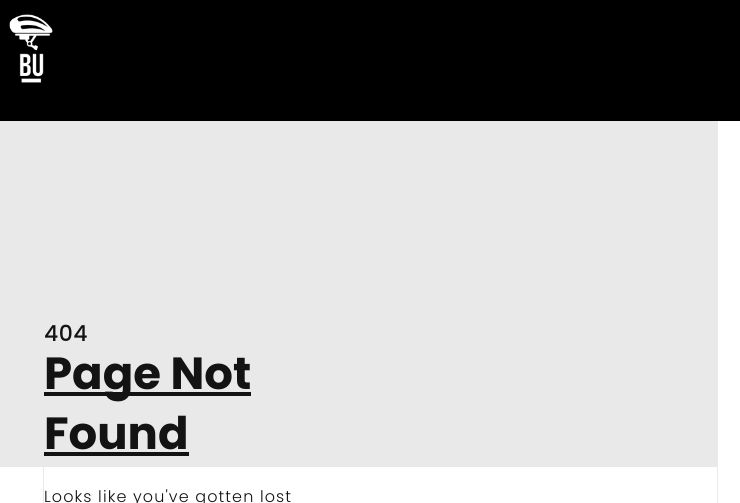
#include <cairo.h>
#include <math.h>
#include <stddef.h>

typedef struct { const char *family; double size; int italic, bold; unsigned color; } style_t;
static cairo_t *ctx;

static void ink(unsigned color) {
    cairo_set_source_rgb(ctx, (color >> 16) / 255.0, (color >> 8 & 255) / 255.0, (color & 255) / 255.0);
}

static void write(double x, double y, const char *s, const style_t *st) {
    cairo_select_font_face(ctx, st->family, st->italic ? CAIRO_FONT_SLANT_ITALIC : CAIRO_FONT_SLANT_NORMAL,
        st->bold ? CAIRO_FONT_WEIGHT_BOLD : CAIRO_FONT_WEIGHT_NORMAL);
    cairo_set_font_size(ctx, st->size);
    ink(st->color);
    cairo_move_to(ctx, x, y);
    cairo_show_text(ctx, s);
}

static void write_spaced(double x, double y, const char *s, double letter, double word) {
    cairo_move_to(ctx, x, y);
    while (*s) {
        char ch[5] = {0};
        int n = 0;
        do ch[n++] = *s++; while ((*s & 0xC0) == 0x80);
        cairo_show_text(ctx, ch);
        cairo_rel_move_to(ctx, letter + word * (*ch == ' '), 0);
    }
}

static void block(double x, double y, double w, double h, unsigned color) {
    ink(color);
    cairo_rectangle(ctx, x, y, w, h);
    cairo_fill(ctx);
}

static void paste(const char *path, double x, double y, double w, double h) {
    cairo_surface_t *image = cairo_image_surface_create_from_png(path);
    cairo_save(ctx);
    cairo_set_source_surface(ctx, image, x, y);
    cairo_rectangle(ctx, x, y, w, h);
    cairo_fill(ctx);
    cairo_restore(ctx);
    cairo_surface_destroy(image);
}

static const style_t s1 = {"Poppins", 45, 0, 1, 0x141313};

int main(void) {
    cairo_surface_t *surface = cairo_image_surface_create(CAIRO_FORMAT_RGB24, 740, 503);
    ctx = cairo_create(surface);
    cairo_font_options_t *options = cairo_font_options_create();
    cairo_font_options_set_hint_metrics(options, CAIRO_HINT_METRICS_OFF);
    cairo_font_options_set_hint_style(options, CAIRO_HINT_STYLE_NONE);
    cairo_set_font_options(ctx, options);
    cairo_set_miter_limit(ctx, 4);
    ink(0xffffff);
    cairo_paint(ctx);
    block(0, 0, 740, 121, 0x000000);
    paste("pic1.png", 9, 14, 44, 69);
    block(0, 121, 718, 346, 0xe9e9e9);
    block(717, 467, 1, 36, 0xe9e9e9);
    block(43, 467, 1, 36, 0xe9e9e9);
    cairo_select_font_face(ctx, "Poppins Medium", CAIRO_FONT_SLANT_NORMAL, CAIRO_FONT_WEIGHT_NORMAL);
    cairo_set_font_size(ctx, 22);
    ink(0x141313);
    write_spaced(44, 341, "404", 0.5, 0);
    block(44, 392, 207, 4, 0x141313);
    write(44, 389, "Page Not", &s1);
    write(44, 449, "Found", &s1);
    block(44, 452, 145, 4, 0x141313);
    cairo_select_font_face(ctx, "Poppins Light", CAIRO_FONT_SLANT_NORMAL, CAIRO_FONT_WEIGHT_NORMAL);
    cairo_set_font_size(ctx, 16);
    write_spaced(44, 502, "Looks like you've gotten lost", 1.1, 0);
    cairo_surface_write_to_png(surface, "screenshot.png");
    cairo_font_options_destroy(options);
    cairo_destroy(ctx);
    cairo_surface_destroy(surface);
    return 0;
}
